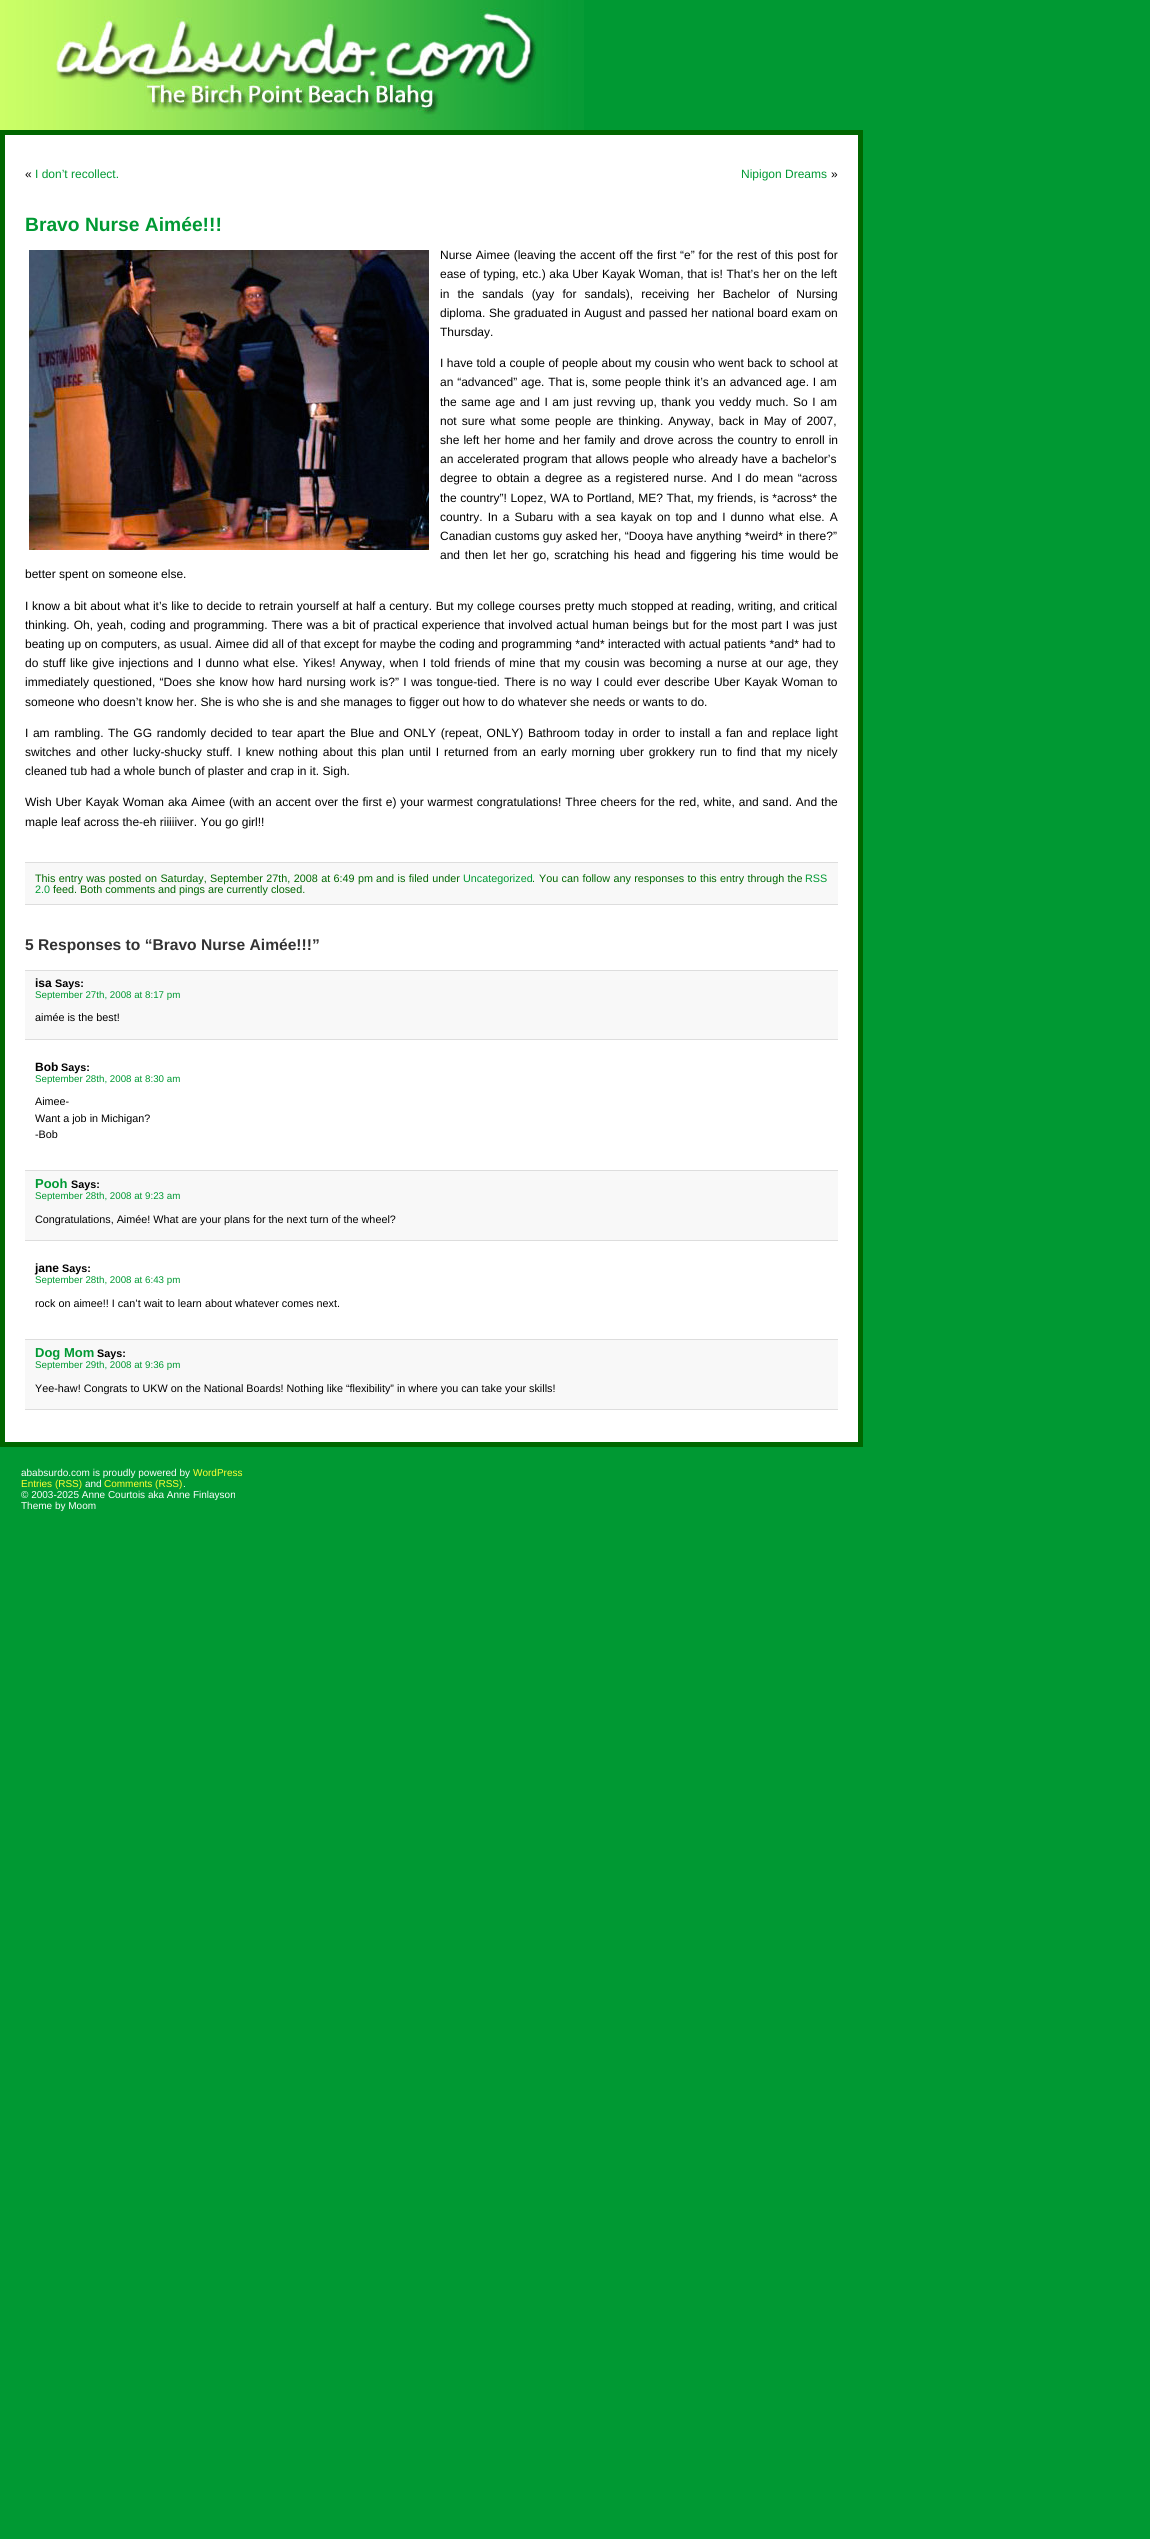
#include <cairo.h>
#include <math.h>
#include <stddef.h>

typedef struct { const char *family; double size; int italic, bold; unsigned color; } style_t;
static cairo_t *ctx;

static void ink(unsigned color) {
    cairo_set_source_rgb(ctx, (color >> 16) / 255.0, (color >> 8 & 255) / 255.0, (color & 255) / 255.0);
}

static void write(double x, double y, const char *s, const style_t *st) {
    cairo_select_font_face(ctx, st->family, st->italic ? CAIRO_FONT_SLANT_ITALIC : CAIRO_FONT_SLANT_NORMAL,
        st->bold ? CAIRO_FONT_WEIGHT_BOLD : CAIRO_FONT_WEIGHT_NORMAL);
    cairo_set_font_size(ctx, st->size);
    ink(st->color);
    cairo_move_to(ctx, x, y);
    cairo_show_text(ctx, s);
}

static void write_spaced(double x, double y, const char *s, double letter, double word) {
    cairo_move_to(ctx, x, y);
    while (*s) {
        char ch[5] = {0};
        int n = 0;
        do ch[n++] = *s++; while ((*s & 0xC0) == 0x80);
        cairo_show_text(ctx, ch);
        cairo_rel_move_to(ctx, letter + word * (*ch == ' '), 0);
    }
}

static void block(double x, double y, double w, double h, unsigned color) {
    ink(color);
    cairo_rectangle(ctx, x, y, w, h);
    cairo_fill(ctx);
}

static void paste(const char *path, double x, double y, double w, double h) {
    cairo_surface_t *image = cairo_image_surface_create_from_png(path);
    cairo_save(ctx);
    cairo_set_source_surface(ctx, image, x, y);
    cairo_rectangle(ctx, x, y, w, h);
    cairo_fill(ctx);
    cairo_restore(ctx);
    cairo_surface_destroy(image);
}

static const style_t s1 = {"Liberation Sans", 12, 0, 0, 0x000000};
static const style_t s2 = {"Liberation Sans", 12, 0, 0, 0x009933};
static const style_t s3 = {"Liberation Sans", 19.25, 0, 1, 0x009933};
static const style_t s4 = {"Liberation Sans", 10.8, 0, 0, 0x009933};
static const style_t s5 = {"Liberation Sans", 10.8, 0, 0, 0x006600};
static const style_t s6 = {"Liberation Sans", 15.6, 0, 1, 0x333333};
static const style_t s7 = {"Liberation Sans", 12, 0, 1, 0x000000};
static const style_t s8 = {"Liberation Sans", 10.8, 0, 1, 0x000000};
static const style_t s9 = {"Liberation Sans", 9.75, 0, 0, 0x009933};
static const style_t s10 = {"Liberation Sans", 10.8, 0, 0, 0x000000};
static const style_t s11 = {"Liberation Sans", 13, 0, 1, 0x009933};
static const style_t s12 = {"Liberation Sans", 10, 0, 0, 0xffffff};
static const style_t s13 = {"Liberation Sans", 10, 0, 0, 0xffff33};

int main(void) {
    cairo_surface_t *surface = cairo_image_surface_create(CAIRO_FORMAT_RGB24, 1150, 2539);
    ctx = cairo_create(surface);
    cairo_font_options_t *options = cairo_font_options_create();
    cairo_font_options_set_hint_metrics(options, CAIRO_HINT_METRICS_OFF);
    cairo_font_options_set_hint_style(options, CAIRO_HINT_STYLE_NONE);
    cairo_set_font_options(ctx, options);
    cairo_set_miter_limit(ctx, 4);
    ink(0x009933);
    cairo_paint(ctx);
    paste("pic1.png", 0, 0, 584, 130);
    ink(0xffffff);
    cairo_rectangle(ctx, 2.5, 132.5, 858, 1312);
    cairo_fill_preserve(ctx);
    ink(0x006600);
    cairo_set_line_width(ctx, 5);
    cairo_stroke(ctx);
    write(25, 178, "«", &s1);
    write(35, 178, "I don’t recollect.", &s2);
    write(741, 178, "Nipigon Dreams", &s2);
    write(831, 178, "»", &s1);
    write(25, 231, "Bravo Nurse Aimée!!!", &s3);
    paste("pic2.png", 29, 250, 400, 300);
    cairo_select_font_face(ctx, "Liberation Sans", CAIRO_FONT_SLANT_NORMAL, CAIRO_FONT_WEIGHT_NORMAL);
    cairo_set_font_size(ctx, 12);
    ink(0x000000);
    write_spaced(440, 259, "Nurse Aimee (leaving the accent off the first “e” for the rest of this post for", 0, 0.5);
    write_spaced(440, 278, "ease of typing, etc.) aka Uber Kayak Woman, that is! That’s her on the left", 0, 0.3);
    write_spaced(440, 298, "in the sandals (yay for sandals), receiving her Bachelor of Nursing", 0, 4.75);
    write_spaced(440, 317, "diploma. She graduated in August and passed her national board exam on", 0, 0.2);
    write(440, 336, "Thursday.", &s1);
    write_spaced(440, 367, "I have told a couple of people about my cousin who went back to school at", 0, 0.2);
    write_spaced(440, 386, "an “advanced” age. That is, some people think it’s an advanced age. I am", 0, 0.5);
    write_spaced(440, 406, "the same age and I am just revving up, thank you veddy much. So I am", 0, 1.25);
    write_spaced(440, 425, "not sure what some people are thinking. Anyway, back in May of 2007,", 0, 1.75);
    write_spaced(440, 444, "she left her home and her family and drove across the country to enroll in", 0, 0.7);
    write_spaced(440, 463, "an accelerated program that allows people who already have a bachelor’s", 0, 0.5);
    write_spaced(440, 482, "degree to obtain a degree as a registered nurse. And I do mean “across", 0, 1.25);
    write_spaced(440, 502, "the country”! Lopez, WA to Portland, ME? That, my friends, is *across* the", 0, 0.25);
    write_spaced(440, 521, "country. In a Subaru with a sea kayak on top and I dunno what else. A", 0, 1.7);
    write(440, 540, "Canadian customs guy asked her, “Dooya have anything *weird* in there?”", &s1);
    write_spaced(440, 559, "and then let her go, scratching his head and figgering his time would be", 0, 1.5);
    write(25, 578, "better spent on someone else.", &s1);
    write_spaced(25, 610, "I know a bit about what it’s like to decide to retrain yourself at half a century. But my college courses pretty much stopped at reading, writing, and critical", 0, 0.3);
    write_spaced(25, 629, "thinking. Oh, yeah, coding and programming. There was a bit of practical experience that involved actual human beings but for the most part I was just", 0, 0.6);
    write(25, 648, "beating up on computers, as usual. Aimee did all of that except for maybe the coding and programming *and* interacted with actual patients *and* had to", &s1);
    write_spaced(25, 667, "do stuff like give injections and I dunno what else. Yikes! Anyway, when I told friends of mine that my cousin was becoming a nurse at our age, they", 0, 1.1);
    write_spaced(25, 686, "immediately questioned, “Does she know how hard nursing work is?” I was tongue-tied. There is no way I could ever describe Uber Kayak Woman to", 0, 0.95);
    write(25, 706, "someone who doesn’t know her. She is who she is and she manages to figger out how to do whatever she needs or wants to do.", &s1);
    write_spaced(25, 737, "I am rambling. The GG randomly decided to tear apart the Blue and ONLY (repeat, ONLY) Bathroom today in order to install a fan and replace light", 0, 1.25);
    write_spaced(25, 756, "switches and other lucky-shucky stuff. I knew nothing about this plan until I returned from an early morning uber grokkery run to find that my nicely", 0, 1.55);
    write(25, 775, "cleaned tub had a whole bunch of plaster and crap in it. Sigh.", &s1);
    write_spaced(25, 806, "Wish Uber Kayak Woman aka Aimee (with an accent over the first e) your warmest congratulations! Three cheers for the red, white, and sand. And the", 0, 0.55);
    write(25, 826, "maple leaf across the-eh riiiiiver. You go girl!!", &s1);
    block(25, 863, 813, 41, 0xf8f8f8);
    block(25, 862, 813, 1, 0xdddddd);
    block(25, 904, 813, 1, 0xdddddd);
    cairo_set_font_size(ctx, 10.8);
    ink(0x006600);
    write_spaced(35, 882, "This entry was posted", 0, 0.4);
    write_spaced(145, 882, "on Saturday, September 27th, 2008 at 6:49 pm", 0, 0.4);
    write_spaced(376, 882, "and is filed under", 0, 0.5);
    write(463, 882, "Uncategorized", &s4);
    write(532, 882, ".", &s5);
    write_spaced(539, 882, "You can follow any responses to this entry through the", 0, 0.4);
    write(805, 882, "RSS", &s4);
    write(35, 893, "2.0", &s4);
    write(53, 893, "feed. Both comments and pings are currently closed.", &s5);
    write(25, 950, "5 Responses to “Bravo Nurse Aimée!!!”", &s6);
    block(25, 971, 813, 68, 0xf8f8f8);
    block(25, 970, 813, 1, 0xdddddd);
    block(25, 1039, 813, 1, 0xdddddd);
    write(35, 987, "isa", &s7);
    write(55, 987, "Says:", &s8);
    write(35, 998, "September 27th, 2008 at 8:17 pm", &s9);
    write(35, 1021, "aimée is the best!", &s10);
    write(35, 1071, "Bob", &s7);
    write(61, 1071, "Says:", &s8);
    write(35, 1082, "September 28th, 2008 at 8:30 am", &s9);
    write(35, 1105, "Aimee-", &s10);
    write(35, 1122, "Want a job in Michigan?", &s10);
    write(35, 1138, "-Bob", &s10);
    block(25, 1171, 813, 69, 0xf8f8f8);
    block(25, 1170, 813, 1, 0xdddddd);
    block(25, 1240, 813, 1, 0xdddddd);
    write(35, 1188, "Pooh", &s11);
    write(71, 1188, "Says:", &s8);
    write(35, 1199, "September 28th, 2008 at 9:23 am", &s9);
    write(35, 1223, "Congratulations, Aimée! What are your plans for the next turn of the wheel?", &s10);
    write(35, 1272, "jane", &s7);
    write(62, 1272, "Says:", &s8);
    write(35, 1283, "September 28th, 2008 at 6:43 pm", &s9);
    write(35, 1307, "rock on aimee!! I can’t wait to learn about whatever comes next.", &s10);
    block(25, 1340, 813, 69, 0xf8f8f8);
    block(25, 1339, 813, 1, 0xdddddd);
    block(25, 1409, 813, 1, 0xdddddd);
    write(35, 1357, "Dog Mom", &s11);
    write(97, 1357, "Says:", &s8);
    write(35, 1368, "September 29th, 2008 at 9:36 pm", &s9);
    write(35, 1392, "Yee-haw! Congrats to UKW on the National Boards! Nothing like “flexibility” in where you can take your skills!", &s10);
    write(21, 1476, "ababsurdo.com is proudly powered by", &s12);
    write(193, 1476, "WordPress", &s13);
    write(21, 1487, "Entries (RSS)", &s13);
    write(85, 1487, "and", &s12);
    write(104, 1487, "Comments (RSS)", &s13);
    write(183, 1487, ".", &s12);
    write(21, 1498, "© 2003-2025 Anne Courtois aka Anne Finlayson", &s12);
    write(21, 1509, "Theme by Moom", &s12);
    cairo_surface_write_to_png(surface, "screenshot.png");
    cairo_font_options_destroy(options);
    cairo_destroy(ctx);
    cairo_surface_destroy(surface);
    return 0;
}
